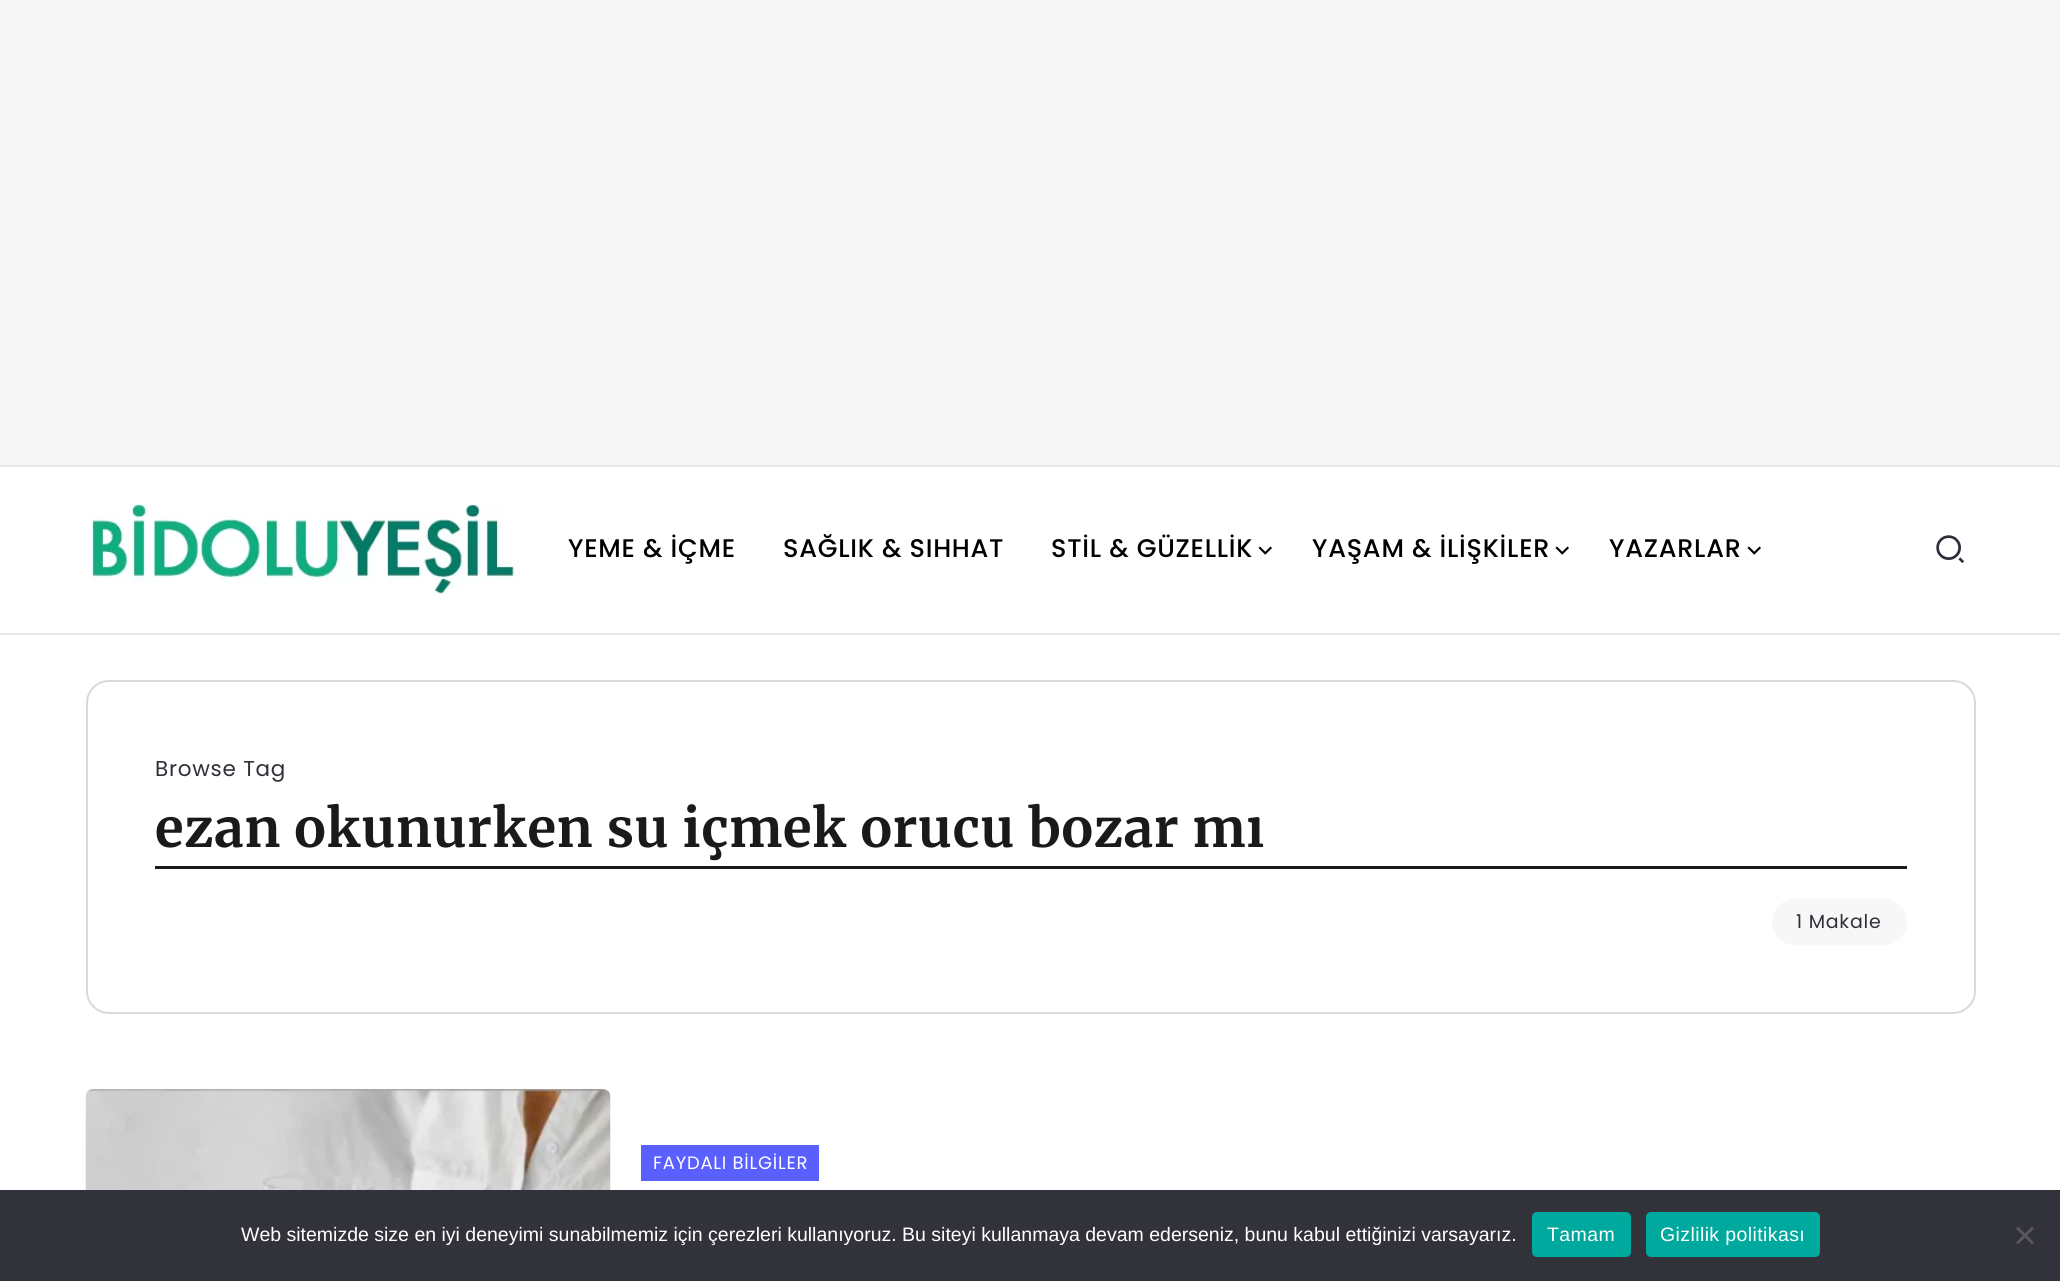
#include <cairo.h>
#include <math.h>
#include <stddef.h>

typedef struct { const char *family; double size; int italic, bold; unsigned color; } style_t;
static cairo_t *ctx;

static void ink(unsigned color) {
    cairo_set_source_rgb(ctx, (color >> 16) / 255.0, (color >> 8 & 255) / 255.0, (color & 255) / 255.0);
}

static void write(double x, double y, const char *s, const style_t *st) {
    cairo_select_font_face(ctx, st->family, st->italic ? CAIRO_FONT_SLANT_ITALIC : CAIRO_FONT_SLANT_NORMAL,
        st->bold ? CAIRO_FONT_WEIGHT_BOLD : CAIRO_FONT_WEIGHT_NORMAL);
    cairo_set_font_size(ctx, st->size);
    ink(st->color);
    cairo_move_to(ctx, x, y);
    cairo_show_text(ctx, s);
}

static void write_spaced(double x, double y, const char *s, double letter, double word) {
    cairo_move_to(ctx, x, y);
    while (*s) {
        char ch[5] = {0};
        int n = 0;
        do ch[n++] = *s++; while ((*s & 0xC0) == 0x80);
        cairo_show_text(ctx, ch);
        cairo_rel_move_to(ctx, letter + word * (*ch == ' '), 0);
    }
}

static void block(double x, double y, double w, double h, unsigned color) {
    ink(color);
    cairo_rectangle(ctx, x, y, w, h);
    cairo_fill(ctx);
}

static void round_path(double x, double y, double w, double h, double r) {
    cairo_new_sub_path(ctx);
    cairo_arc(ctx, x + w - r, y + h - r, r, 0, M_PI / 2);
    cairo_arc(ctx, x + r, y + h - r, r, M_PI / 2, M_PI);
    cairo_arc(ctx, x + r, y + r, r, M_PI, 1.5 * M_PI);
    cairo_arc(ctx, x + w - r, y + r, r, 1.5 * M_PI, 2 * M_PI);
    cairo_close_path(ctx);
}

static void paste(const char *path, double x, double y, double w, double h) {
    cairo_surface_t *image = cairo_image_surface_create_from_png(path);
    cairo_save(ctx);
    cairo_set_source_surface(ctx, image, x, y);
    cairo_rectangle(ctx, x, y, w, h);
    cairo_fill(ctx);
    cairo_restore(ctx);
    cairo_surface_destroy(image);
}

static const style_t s1 = {"Liberation Sans", 19.5, 0, 0, 0xffffff};

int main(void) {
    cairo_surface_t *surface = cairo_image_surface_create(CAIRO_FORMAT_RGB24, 2060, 1281);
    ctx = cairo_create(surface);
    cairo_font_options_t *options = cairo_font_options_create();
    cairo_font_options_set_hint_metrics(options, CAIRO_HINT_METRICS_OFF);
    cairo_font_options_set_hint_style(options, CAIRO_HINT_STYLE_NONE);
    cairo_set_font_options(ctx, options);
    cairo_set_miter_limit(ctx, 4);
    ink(0xffffff);
    cairo_paint(ctx);
    block(0, 0, 2060, 465, 0xf6f6f6);
    block(0, 465, 2060, 2, 0xe7e7e7);
    block(0, 633, 2060, 2, 0xe7e7e7);
    paste("pic1.png", 91, 504, 427, 90);
    cairo_select_font_face(ctx, "Poppins Medium", CAIRO_FONT_SLANT_NORMAL, CAIRO_FONT_WEIGHT_NORMAL);
    cairo_set_font_size(ctx, 25.5);
    ink(0x000000);
    write_spaced(568, 557, "YEME & İÇME", 0.75, 0);
    write_spaced(783, 557, "SAĞLIK & SIHHAT", 0.75, 0);
    write_spaced(1051, 557, "STİL & GÜZELLİK", 0.75, 0);
    paste("pic2.png", 1258, 546, 14, 9);
    write_spaced(1312, 557, "YAŞAM & İLİŞKİLER", 0.75, 0);
    paste("pic2.png", 1555, 546, 14, 9);
    write_spaced(1609, 557, "YAZARLAR", 0.75, 0);
    paste("pic2.png", 1747, 546, 14, 9);
    paste("pic3.png", 1936, 535, 29, 29);
    round_path(87, 681, 1888, 332, 22);
    ink(0xd9d9da);
    cairo_stroke(ctx);
    cairo_select_font_face(ctx, "Poppins", CAIRO_FONT_SLANT_NORMAL, CAIRO_FONT_WEIGHT_NORMAL);
    cairo_set_font_size(ctx, 21.5);
    ink(0x2e3039);
    write_spaced(155, 776, "Browse Tag", 0.75, 0);
    block(155, 866, 1752, 3, 0x191a1b);
    cairo_select_font_face(ctx, "Merriweather Light", CAIRO_FONT_SLANT_NORMAL, CAIRO_FONT_WEIGHT_NORMAL);
    cairo_set_font_size(ctx, 52.8);
    write_spaced(155, 847, "ezan okunurken su içmek orucu bozar mı", 0.75, 0);
    ink(0xf7f7f7);
    round_path(1772, 899, 135, 46, 23);
    cairo_fill(ctx);
    cairo_select_font_face(ctx, "Poppins", CAIRO_FONT_SLANT_NORMAL, CAIRO_FONT_WEIGHT_NORMAL);
    cairo_set_font_size(ctx, 19);
    ink(0x2e3039);
    write_spaced(1796, 928, "1 Makale", 0.75, 0);
    paste("pic4.png", 85, 1089, 526, 101);
    block(641, 1145, 178, 36, 0x5960ff);
    cairo_set_font_size(ctx, 18);
    ink(0xffffff);
    write_spaced(653, 1169, "FAYDALI BİLGİLER", 0.75, 0);
    block(0, 1190, 2060, 91, 0x32323a);
    write(241, 1241, "Web sitemizde size en iyi deneyimi sunabilmemiz için çerezleri kullanıyoruz. Bu siteyi kullanmaya devam ederseniz, bunu kabul ettiğinizi varsayarız.", &s1);
    ink(0x00a99d);
    round_path(1532, 1212, 99, 45, 5);
    cairo_fill(ctx);
    ink(0xffffff);
    write_spaced(1547, 1241, "Tamam", 0.4, 0);
    ink(0x00a99d);
    round_path(1646, 1212, 174, 45, 5);
    cairo_fill(ctx);
    ink(0xffffff);
    write_spaced(1660, 1241, "Gizlilik politikası", 0.4, 0);
    ink(0x59595d);
    cairo_new_path(ctx);
    cairo_move_to(ctx, 2032, 1226.5);
    cairo_line_to(ctx, 2034, 1228.5);
    cairo_line_to(ctx, 2018, 1244.5);
    cairo_line_to(ctx, 2016, 1242.5);
    cairo_close_path(ctx);
    cairo_fill(ctx);
    cairo_new_path(ctx);
    cairo_move_to(ctx, 2016, 1228.5);
    cairo_line_to(ctx, 2018, 1226.5);
    cairo_line_to(ctx, 2034, 1242.5);
    cairo_line_to(ctx, 2032, 1244.5);
    cairo_close_path(ctx);
    cairo_fill(ctx);
    cairo_surface_write_to_png(surface, "screenshot.png");
    cairo_font_options_destroy(options);
    cairo_destroy(ctx);
    cairo_surface_destroy(surface);
    return 0;
}
